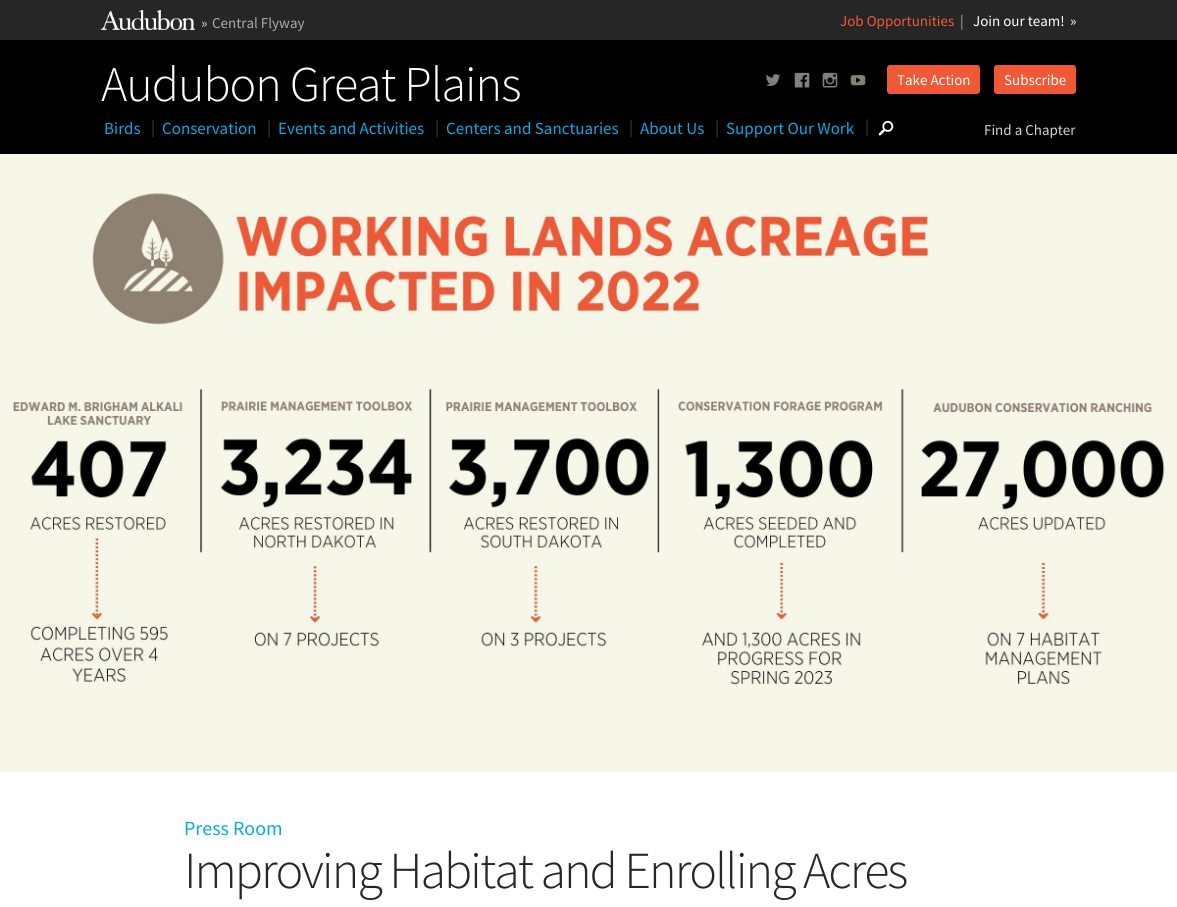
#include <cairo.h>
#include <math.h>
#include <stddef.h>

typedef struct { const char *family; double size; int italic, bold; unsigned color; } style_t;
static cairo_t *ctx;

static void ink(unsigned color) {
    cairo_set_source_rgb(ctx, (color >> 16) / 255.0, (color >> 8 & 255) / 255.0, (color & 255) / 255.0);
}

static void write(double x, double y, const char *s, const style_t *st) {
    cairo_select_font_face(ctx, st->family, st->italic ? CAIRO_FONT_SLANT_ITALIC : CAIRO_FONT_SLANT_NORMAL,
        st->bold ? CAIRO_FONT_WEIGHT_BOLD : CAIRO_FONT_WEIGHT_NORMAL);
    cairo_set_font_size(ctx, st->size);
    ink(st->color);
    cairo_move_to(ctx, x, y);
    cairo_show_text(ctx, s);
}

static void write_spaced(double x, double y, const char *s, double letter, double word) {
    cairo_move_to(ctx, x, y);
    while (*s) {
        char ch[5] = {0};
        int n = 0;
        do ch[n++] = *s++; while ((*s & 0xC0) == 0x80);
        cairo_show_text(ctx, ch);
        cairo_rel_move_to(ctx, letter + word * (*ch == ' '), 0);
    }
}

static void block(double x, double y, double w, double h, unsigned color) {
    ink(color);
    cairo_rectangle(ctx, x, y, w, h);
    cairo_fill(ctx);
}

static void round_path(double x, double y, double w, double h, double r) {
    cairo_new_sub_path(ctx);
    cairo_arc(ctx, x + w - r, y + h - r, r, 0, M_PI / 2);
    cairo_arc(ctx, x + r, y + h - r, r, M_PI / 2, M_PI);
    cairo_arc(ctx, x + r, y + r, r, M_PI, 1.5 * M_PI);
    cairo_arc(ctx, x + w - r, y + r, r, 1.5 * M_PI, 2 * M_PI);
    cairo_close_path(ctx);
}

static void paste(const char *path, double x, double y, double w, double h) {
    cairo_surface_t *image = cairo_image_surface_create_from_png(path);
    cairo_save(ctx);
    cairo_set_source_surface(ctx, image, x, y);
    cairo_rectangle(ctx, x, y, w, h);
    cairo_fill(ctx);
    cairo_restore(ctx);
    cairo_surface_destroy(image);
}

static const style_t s1 = {"Source Sans Pro", 15, 0, 0, 0xd4d4d4};
static const style_t s2 = {"Source Sans Pro", 15, 0, 0, 0xaaaaaa};
static const style_t s3 = {"Source Sans Pro", 15, 0, 0, 0xf15936};
static const style_t s4 = {"Source Sans Pro", 15, 0, 0, 0xffffff};
static const style_t s5 = {"Source Sans Pro", 17, 0, 0, 0x0aa8e3};
static const style_t s6 = {"Source Sans Pro", 17, 0, 0, 0x404040};
static const style_t s7 = {"Source Sans Pro", 20, 0, 0, 0x0aa8e3};

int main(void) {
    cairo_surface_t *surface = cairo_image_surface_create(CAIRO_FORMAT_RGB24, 1177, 907);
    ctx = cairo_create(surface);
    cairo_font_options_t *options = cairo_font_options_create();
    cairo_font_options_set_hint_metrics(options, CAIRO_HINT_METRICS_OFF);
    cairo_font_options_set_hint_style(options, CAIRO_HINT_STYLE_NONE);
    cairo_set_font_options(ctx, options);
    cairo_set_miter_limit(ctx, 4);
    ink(0xffffff);
    cairo_paint(ctx);
    block(0, 40, 1177, 114, 0x000000);
    block(0, 0, 1177, 40, 0x262626);
    paste("pic1.png", 101, 10, 94, 20);
    write(201, 28, "»", &s1);
    write(212, 28, "Central Flyway", &s2);
    write(840, 26, "Job Opportunities", &s3);
    write(960, 26, "|", &s2);
    write(973, 26, "Join our team!", &s4);
    write(1070, 26, "»", &s4);
    cairo_select_font_face(ctx, "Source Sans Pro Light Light", CAIRO_FONT_SLANT_NORMAL, CAIRO_FONT_WEIGHT_NORMAL);
    cairo_set_font_size(ctx, 50);
    write_spaced(101, 101, "Audubon Great Plains", -1, 0);
    paste("pic2.png", 766, 74, 15, 12);
    paste("pic3.png", 794, 72, 16, 16);
    paste("pic4.png", 822, 72, 16, 16);
    paste("pic5.png", 850, 75, 16, 11);
    ink(0xf15936);
    round_path(887, 65, 93, 29, 3);
    cairo_fill(ctx);
    write(897, 85, "Take Action", &s4);
    ink(0xf15936);
    round_path(994, 65, 82, 29, 3);
    cairo_fill(ctx);
    write(1004, 85, "Subscribe", &s4);
    write(104, 134, "Birds", &s5);
    write(151, 133, "|", &s6);
    write(162, 134, "Conservation", &s5);
    write(267, 133, "|", &s6);
    write(278, 134, "Events and Activities", &s5);
    write(435, 133, "|", &s6);
    write(446, 134, "Centers and Sanctuaries", &s5);
    write(629, 133, "|", &s6);
    write(640, 134, "About Us", &s5);
    write(715, 133, "|", &s6);
    write(726, 134, "Support Our Work", &s5);
    write(865, 132, "|", &s6);
    paste("pic6.png", 878, 120, 16, 16);
    write(984, 135, "Find a Chapter", &s1);
    paste("pic7.png", 0, 154, 1177, 618);
    write(184, 835, "Press Room", &s7);
    cairo_select_font_face(ctx, "Source Sans Pro Light Light", CAIRO_FONT_SLANT_NORMAL, CAIRO_FONT_WEIGHT_NORMAL);
    cairo_set_font_size(ctx, 52);
    ink(0x262626);
    write_spaced(184, 888, "Improving Habitat and Enrolling Acres", -2, 0);
    cairo_surface_write_to_png(surface, "screenshot.png");
    cairo_font_options_destroy(options);
    cairo_destroy(ctx);
    cairo_surface_destroy(surface);
    return 0;
}
